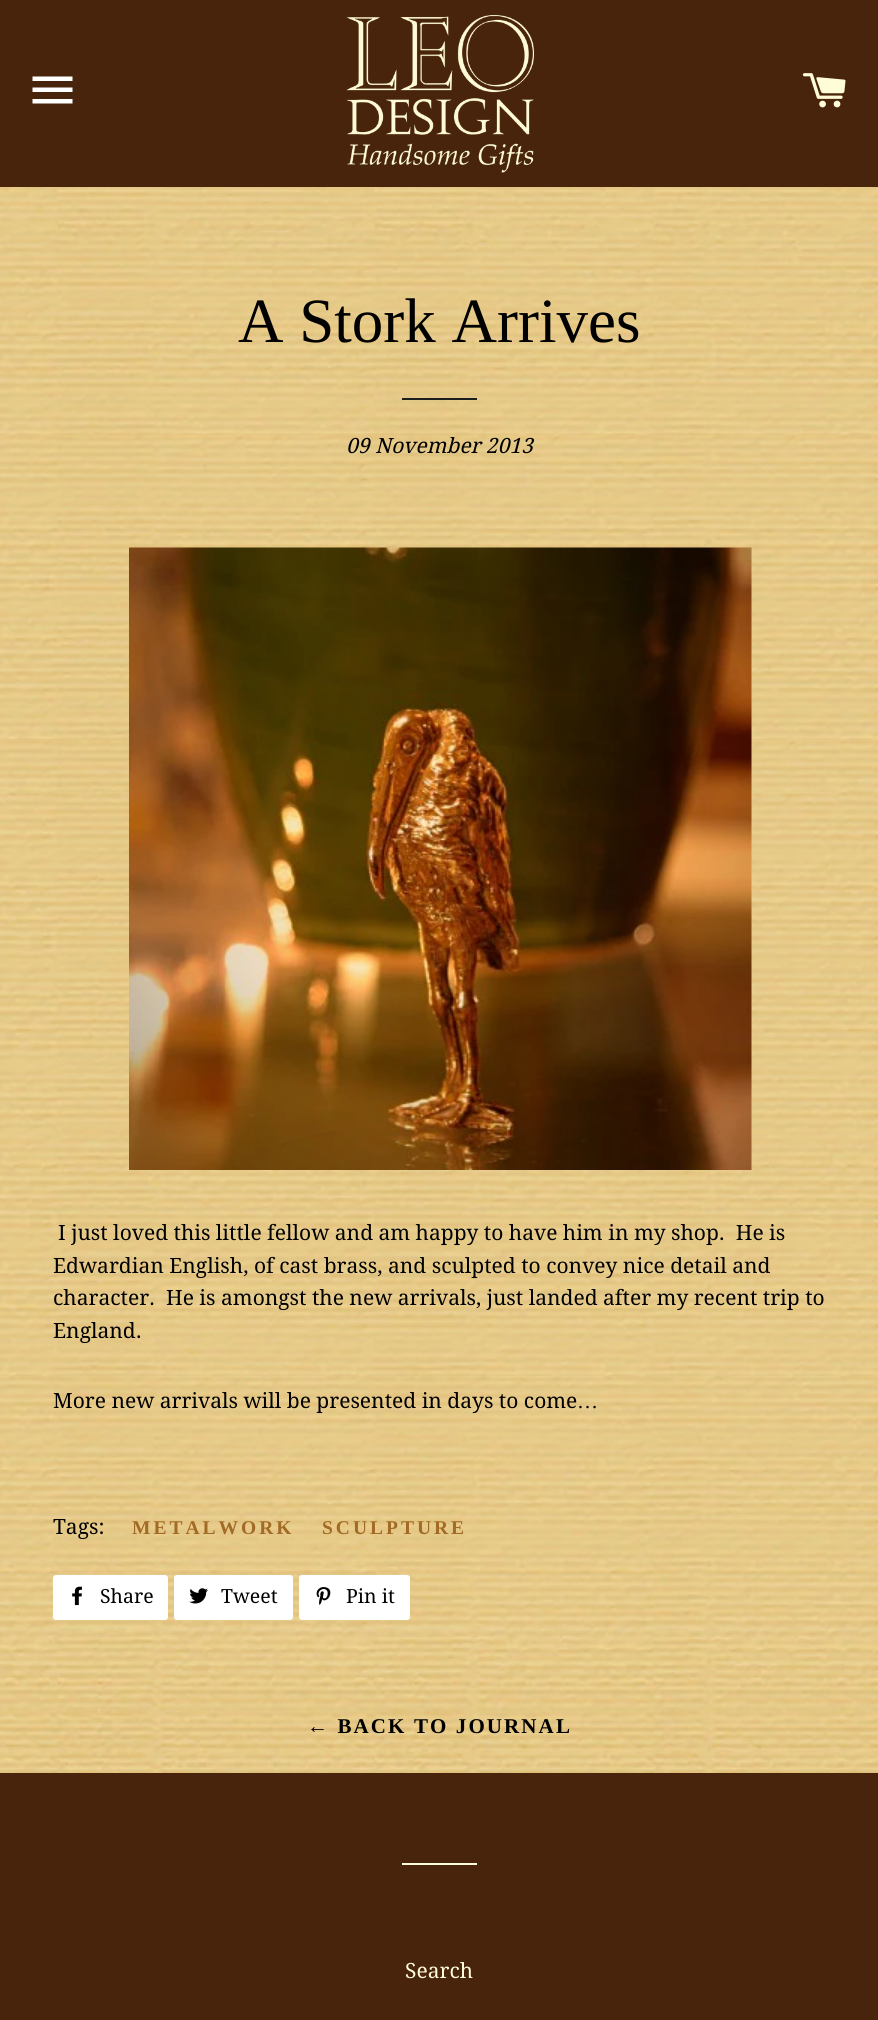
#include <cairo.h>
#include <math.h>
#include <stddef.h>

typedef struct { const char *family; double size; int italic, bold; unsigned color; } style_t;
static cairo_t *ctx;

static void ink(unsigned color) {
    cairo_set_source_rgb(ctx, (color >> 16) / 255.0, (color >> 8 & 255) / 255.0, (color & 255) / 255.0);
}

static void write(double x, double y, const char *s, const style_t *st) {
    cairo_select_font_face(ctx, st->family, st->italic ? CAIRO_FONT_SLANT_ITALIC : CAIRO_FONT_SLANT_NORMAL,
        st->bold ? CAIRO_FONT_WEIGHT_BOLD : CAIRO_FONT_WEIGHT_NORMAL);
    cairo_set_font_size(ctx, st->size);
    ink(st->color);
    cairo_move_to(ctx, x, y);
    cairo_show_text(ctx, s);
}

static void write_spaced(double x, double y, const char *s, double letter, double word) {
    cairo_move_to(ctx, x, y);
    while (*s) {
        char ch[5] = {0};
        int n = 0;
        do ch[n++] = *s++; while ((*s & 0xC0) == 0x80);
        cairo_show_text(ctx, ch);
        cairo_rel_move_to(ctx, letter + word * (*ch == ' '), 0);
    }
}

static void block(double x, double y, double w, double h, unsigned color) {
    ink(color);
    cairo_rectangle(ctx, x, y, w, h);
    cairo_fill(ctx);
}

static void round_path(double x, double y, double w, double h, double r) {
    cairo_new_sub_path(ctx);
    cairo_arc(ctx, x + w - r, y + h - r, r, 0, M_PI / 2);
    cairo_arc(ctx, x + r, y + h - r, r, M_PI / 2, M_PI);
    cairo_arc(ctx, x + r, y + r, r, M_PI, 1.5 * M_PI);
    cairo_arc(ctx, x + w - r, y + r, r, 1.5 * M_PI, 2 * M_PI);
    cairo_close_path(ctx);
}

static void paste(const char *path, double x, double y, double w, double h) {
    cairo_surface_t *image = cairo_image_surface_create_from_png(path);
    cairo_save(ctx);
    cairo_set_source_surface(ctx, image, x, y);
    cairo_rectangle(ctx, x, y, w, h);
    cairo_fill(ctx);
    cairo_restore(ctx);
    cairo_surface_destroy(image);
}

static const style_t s1 = {"Liberation Serif", 63, 0, 0, 0x000000};
static const style_t s2 = {"Droid Serif", 21, 1, 0, 0x000000};
static const style_t s3 = {"Droid Serif", 21, 0, 0, 0x000000};
static const style_t s4 = {"Liberation Serif", 21, 0, 0, 0x000000};
static const style_t s5 = {"Droid Serif", 19.5, 0, 0, 0x000000};
static const style_t s6 = {"Droid Serif", 21, 0, 0, 0xfffdd7};

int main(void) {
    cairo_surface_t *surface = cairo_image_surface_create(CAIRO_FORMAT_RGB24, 878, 2020);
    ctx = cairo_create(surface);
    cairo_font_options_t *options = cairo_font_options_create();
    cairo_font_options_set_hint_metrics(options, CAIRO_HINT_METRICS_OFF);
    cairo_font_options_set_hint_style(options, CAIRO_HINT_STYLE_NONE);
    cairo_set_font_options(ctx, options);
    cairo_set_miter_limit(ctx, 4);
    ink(0x49240c);
    cairo_paint(ctx);
    ink(0xffffff);
    cairo_new_path(ctx);
    cairo_move_to(ctx, 32.5, 76.5);
    cairo_line_to(ctx, 72.5, 76.5);
    cairo_line_to(ctx, 72.5, 81);
    cairo_line_to(ctx, 32.5, 81);
    cairo_close_path(ctx);
    cairo_move_to(ctx, 32.5, 87.5);
    cairo_line_to(ctx, 72.5, 87.5);
    cairo_line_to(ctx, 72.5, 92);
    cairo_line_to(ctx, 32.5, 92);
    cairo_close_path(ctx);
    cairo_move_to(ctx, 32.5, 99);
    cairo_line_to(ctx, 72.5, 99);
    cairo_line_to(ctx, 72.5, 103.5);
    cairo_line_to(ctx, 32.5, 103.5);
    cairo_close_path(ctx);
    cairo_fill(ctx);
    paste("pic1.png", 346, 15, 188, 158);
    paste("pic2.png", 802, 73, 44, 35);
    paste("pic3.png", 0, 187, 878, 1586);
    write(238, 342, "A Stork Arrives", &s1);
    block(402, 398, 75, 2, 0x1c1d1d);
    write(346, 453, "09 November 2013", &s2);
    paste("pic4.png", 129, 547, 623, 623);
    write(58, 1240, "I just loved this little fellow and am happy to have him in my shop.  He is", &s3);
    write(53, 1273, "Edwardian English, of cast brass, and sculpted to convey nice detail and", &s3);
    write(53, 1305, "character.  He is amongst the new arrivals, just landed after my recent trip to", &s3);
    write(53, 1338, "England.", &s3);
    write(53, 1408, "More new arrivals will be presented in days to come", &s3);
    write(577, 1408, "…", &s4);
    write(53, 1534, "Tags:", &s3);
    cairo_select_font_face(ctx, "Liberation Serif", CAIRO_FONT_SLANT_NORMAL, CAIRO_FONT_WEIGHT_BOLD);
    cairo_set_font_size(ctx, 19.5);
    ink(0xa26b25);
    write_spaced(132, 1534, "METALWORK", 3, 0);
    write_spaced(322, 1534, "SCULPTURE", 3, 0);
    ink(0xffffff);
    round_path(53, 1575, 115, 45, 3);
    cairo_fill(ctx);
    paste("pic5.png", 72, 1586, 10, 20);
    write(100, 1603, "Share", &s5);
    ink(0xffffff);
    round_path(174, 1575, 119, 45, 3);
    cairo_fill(ctx);
    paste("pic6.png", 189, 1588, 19, 16);
    write(221, 1603, "Tweet", &s5);
    ink(0xffffff);
    round_path(299, 1575, 111, 45, 3);
    cairo_fill(ctx);
    paste("pic7.png", 316, 1587, 15, 18);
    write(346, 1603, "Pin it", &s5);
    cairo_select_font_face(ctx, "Liberation Serif", CAIRO_FONT_SLANT_NORMAL, CAIRO_FONT_WEIGHT_BOLD);
    cairo_set_font_size(ctx, 21);
    write_spaced(307, 1733, "← BACK TO JOURNAL", 2.1, 0);
    block(402, 1863, 75, 2, 0xfffdd7);
    write(405, 1978, "Search", &s6);
    cairo_surface_write_to_png(surface, "screenshot.png");
    cairo_font_options_destroy(options);
    cairo_destroy(ctx);
    cairo_surface_destroy(surface);
    return 0;
}
